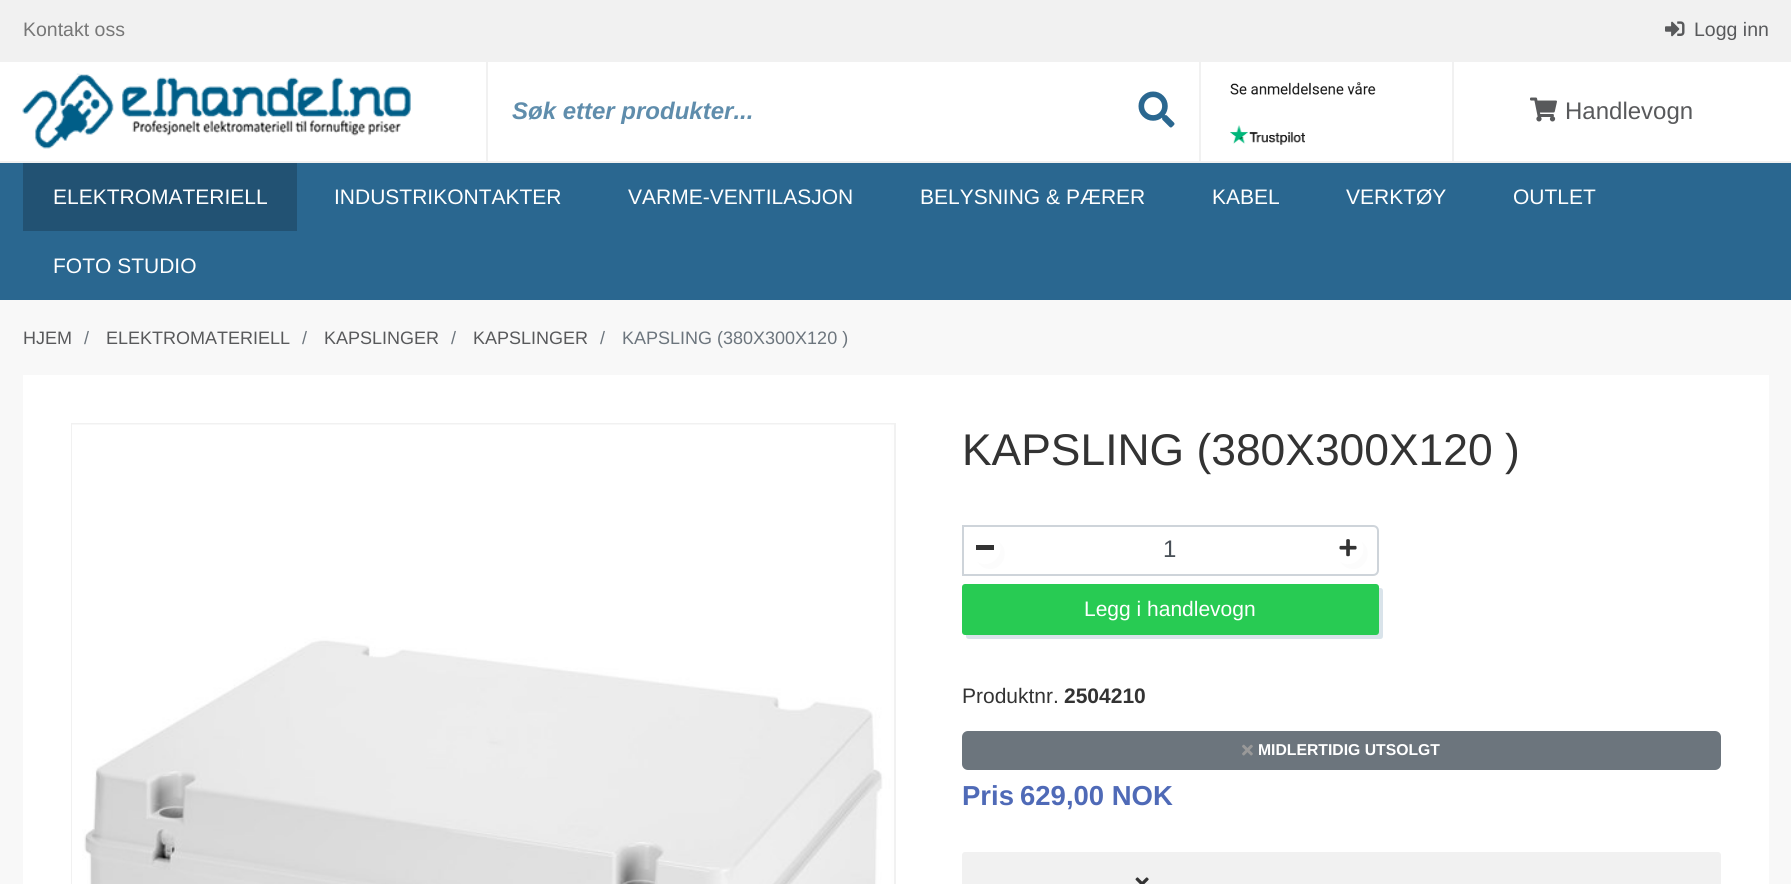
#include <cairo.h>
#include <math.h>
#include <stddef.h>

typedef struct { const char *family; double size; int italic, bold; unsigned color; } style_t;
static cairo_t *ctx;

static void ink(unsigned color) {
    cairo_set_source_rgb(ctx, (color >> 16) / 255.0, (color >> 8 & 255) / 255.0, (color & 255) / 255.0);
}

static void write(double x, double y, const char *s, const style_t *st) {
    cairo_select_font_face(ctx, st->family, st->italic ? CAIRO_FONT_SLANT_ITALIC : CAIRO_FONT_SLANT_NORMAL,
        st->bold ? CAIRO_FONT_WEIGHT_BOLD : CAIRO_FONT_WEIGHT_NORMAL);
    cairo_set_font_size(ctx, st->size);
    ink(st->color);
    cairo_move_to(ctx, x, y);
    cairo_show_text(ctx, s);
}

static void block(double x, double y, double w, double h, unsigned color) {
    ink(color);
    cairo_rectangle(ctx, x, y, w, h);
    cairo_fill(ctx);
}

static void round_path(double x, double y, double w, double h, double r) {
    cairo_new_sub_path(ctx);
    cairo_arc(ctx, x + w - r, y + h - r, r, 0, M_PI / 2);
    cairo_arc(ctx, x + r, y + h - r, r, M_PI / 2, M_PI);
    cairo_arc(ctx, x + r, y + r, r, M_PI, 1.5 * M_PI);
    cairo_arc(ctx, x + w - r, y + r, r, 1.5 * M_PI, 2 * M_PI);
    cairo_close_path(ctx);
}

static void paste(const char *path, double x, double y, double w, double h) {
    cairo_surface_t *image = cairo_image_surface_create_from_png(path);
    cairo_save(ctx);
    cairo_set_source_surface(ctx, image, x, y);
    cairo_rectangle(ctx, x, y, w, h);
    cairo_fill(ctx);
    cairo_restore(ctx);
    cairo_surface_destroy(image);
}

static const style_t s1 = {"Liberation Sans", 19.5, 0, 0, 0x777777};
static const style_t s2 = {"Liberation Sans", 19.5, 0, 0, 0x58595b};
static const style_t s3 = {"Liberation Sans", 24, 1, 1, 0x5f8dac};
static const style_t s4 = {"Liberation Sans", 24, 0, 0, 0x58595b};
static const style_t s5 = {"Liberation Sans", 21, 0, 0, 0xffffff};
static const style_t s6 = {"Liberation Sans", 18, 0, 0, 0x58595b};
static const style_t s7 = {"Liberation Sans", 18, 0, 0, 0x6c757d};
static const style_t s8 = {"Liberation Sans", 44.4, 0, 0, 0x333333};
static const style_t s9 = {"Liberation Sans", 24, 0, 0, 0x495057};
static const style_t s10 = {"Liberation Sans", 21, 0, 0, 0x333333};
static const style_t s11 = {"Liberation Sans", 21, 0, 1, 0x333333};
static const style_t s12 = {"Liberation Sans", 15.75, 0, 1, 0xffffff};
static const style_t s13 = {"Liberation Sans", 27.5, 0, 1, 0x4f6ab7};

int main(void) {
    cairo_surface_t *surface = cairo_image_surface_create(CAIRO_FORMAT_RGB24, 1791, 884);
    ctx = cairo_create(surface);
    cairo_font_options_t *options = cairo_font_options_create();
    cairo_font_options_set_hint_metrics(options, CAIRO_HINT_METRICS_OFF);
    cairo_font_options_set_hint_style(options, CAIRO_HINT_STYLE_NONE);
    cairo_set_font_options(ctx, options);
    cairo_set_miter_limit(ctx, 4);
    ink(0xf8f8f8);
    cairo_paint(ctx);
    block(0, 62, 1791, 99, 0xffffff);
    block(0, 0, 1791, 62, 0xf1f1f1);
    write(23, 36, "Kontakt oss", &s1);
    paste("pic1.png", 1665, 21, 20, 16);
    write(1694, 36, "Logg inn", &s2);
    block(0, 161, 1791, 2, 0xf1f1f1);
    paste("pic2.png", 22, 73, 389, 76);
    block(486, 62, 2, 99, 0xf1f1f1);
    write(512, 119, "Søk etter produkter...", &s3);
    paste("pic3.png", 1138, 91, 37, 37);
    block(1199, 62, 2, 99, 0xf1f1f1);
    paste("pic4.png", 1230, 82, 146, 13);
    paste("pic5.png", 1230, 125, 75, 20);
    block(1452, 62, 2, 99, 0xf1f1f1);
    paste("pic6.png", 1530, 97, 27, 25);
    write(1565, 119, "Handlevogn", &s4);
    block(0, 163, 1791, 137, 0x2a6790);
    block(23, 163, 274, 68, 0x225273);
    write(53, 204, "ELEKTROMATERIELL", &s5);
    write(334, 204, "INDUSTRIKONTAKTER", &s5);
    write(628, 204, "VARME-VENTILASJON", &s5);
    write(920, 204, "BELYSNING & PÆRER", &s5);
    write(1212, 204, "KABEL", &s5);
    write(1346, 204, "VERKTØY", &s5);
    write(1513, 204, "OUTLET", &s5);
    write(53, 273, "FOTO STUDIO", &s5);
    write(23, 344, "HJEM", &s6);
    write(84, 344, "/", &s7);
    write(106, 344, "ELEKTROMATERIELL", &s6);
    write(302, 344, "/", &s7);
    write(324, 344, "KAPSLINGER", &s6);
    write(451, 344, "/", &s7);
    write(473, 344, "KAPSLINGER", &s6);
    write(600, 344, "/", &s7);
    write(622, 344, "KAPSLING (380X300X120 )", &s7);
    block(23, 375, 1746, 509, 0xffffff);
    cairo_rectangle(ctx, 72, 424, 823, 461);
    ink(0xf1f1f1);
    cairo_stroke(ctx);
    paste("pic7.png", 72, 424, 822, 460);
    write(962, 465, "KAPSLING (380X300X120 )", &s8);
    cairo_new_path(ctx);
    cairo_move_to(ctx, 963, 526);
    cairo_line_to(ctx, 1373, 526);
    cairo_curve_to(ctx, 1376, 526, 1378, 528, 1378, 531);
    cairo_line_to(ctx, 1378, 570);
    cairo_curve_to(ctx, 1378, 573, 1376, 575, 1373, 575);
    cairo_line_to(ctx, 963, 575);
    cairo_close_path(ctx);
    ink(0xced4da);
    cairo_stroke(ctx);
    ink(0xfcfcfc);
    cairo_new_path(ctx);
    cairo_move_to(ctx, 977, 561.5);
    cairo_curve_to(ctx, 979, 564.5, 982, 567.5, 986, 568.5);
    cairo_curve_to(ctx, 1002, 573, 1012, 551, 998.5, 541.5);
    cairo_curve_to(ctx, 1006, 555.5, 989.5, 570.5, 977, 561.5);
    cairo_close_path(ctx);
    cairo_fill(ctx);
    block(976, 545, 18, 5, 0x333333);
    write(1163, 557, "1", &s9);
    ink(0xfcfcfc);
    cairo_new_path(ctx);
    cairo_move_to(ctx, 1340, 561.5);
    cairo_curve_to(ctx, 1342, 564.5, 1345, 567.5, 1349, 568.5);
    cairo_curve_to(ctx, 1365, 573, 1375, 551, 1361.5, 541.5);
    cairo_curve_to(ctx, 1369, 555.5, 1352.5, 570.5, 1340, 561.5);
    cairo_close_path(ctx);
    cairo_fill(ctx);
    paste("pic8.png", 1339, 539, 18, 18);
    ink(0xd9e3ea);
    cairo_new_path(ctx);
    cairo_move_to(ctx, 966, 634);
    cairo_line_to(ctx, 966, 636);
    cairo_curve_to(ctx, 966, 638, 967, 639, 969, 639);
    cairo_line_to(ctx, 1380, 639);
    cairo_curve_to(ctx, 1382, 639, 1383, 638, 1383, 636);
    cairo_line_to(ctx, 1383, 591);
    cairo_curve_to(ctx, 1383, 589, 1382, 588, 1380, 588);
    cairo_line_to(ctx, 1378, 588);
    cairo_line_to(ctx, 1378, 632);
    cairo_curve_to(ctx, 1378, 633, 1377, 634, 1376, 634);
    cairo_close_path(ctx);
    cairo_fill(ctx);
    ink(0x28cb53);
    round_path(962, 584, 417, 51, 3);
    cairo_fill(ctx);
    write(1084, 616, "Legg i handlevogn", &s5);
    write(962, 703, "Produktnr.", &s10);
    write(1064, 703, "2504210", &s11);
    ink(0x6c757d);
    round_path(962, 731, 759, 39, 6);
    cairo_fill(ctx);
    paste("pic9.png", 1242, 744, 11, 12);
    write(1258, 755, "MIDLERTIDIG UTSOLGT", &s12);
    write(962, 805, "Pris", &s13);
    write(1020, 805, "629,00 NOK", &s13);
    ink(0xf1f1f1);
    round_path(962, 852, 759, 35, 3);
    cairo_fill(ctx);
    paste("pic10.png", 1135, 877, 14, 7);
    cairo_surface_write_to_png(surface, "screenshot.png");
    cairo_font_options_destroy(options);
    cairo_destroy(ctx);
    cairo_surface_destroy(surface);
    return 0;
}
